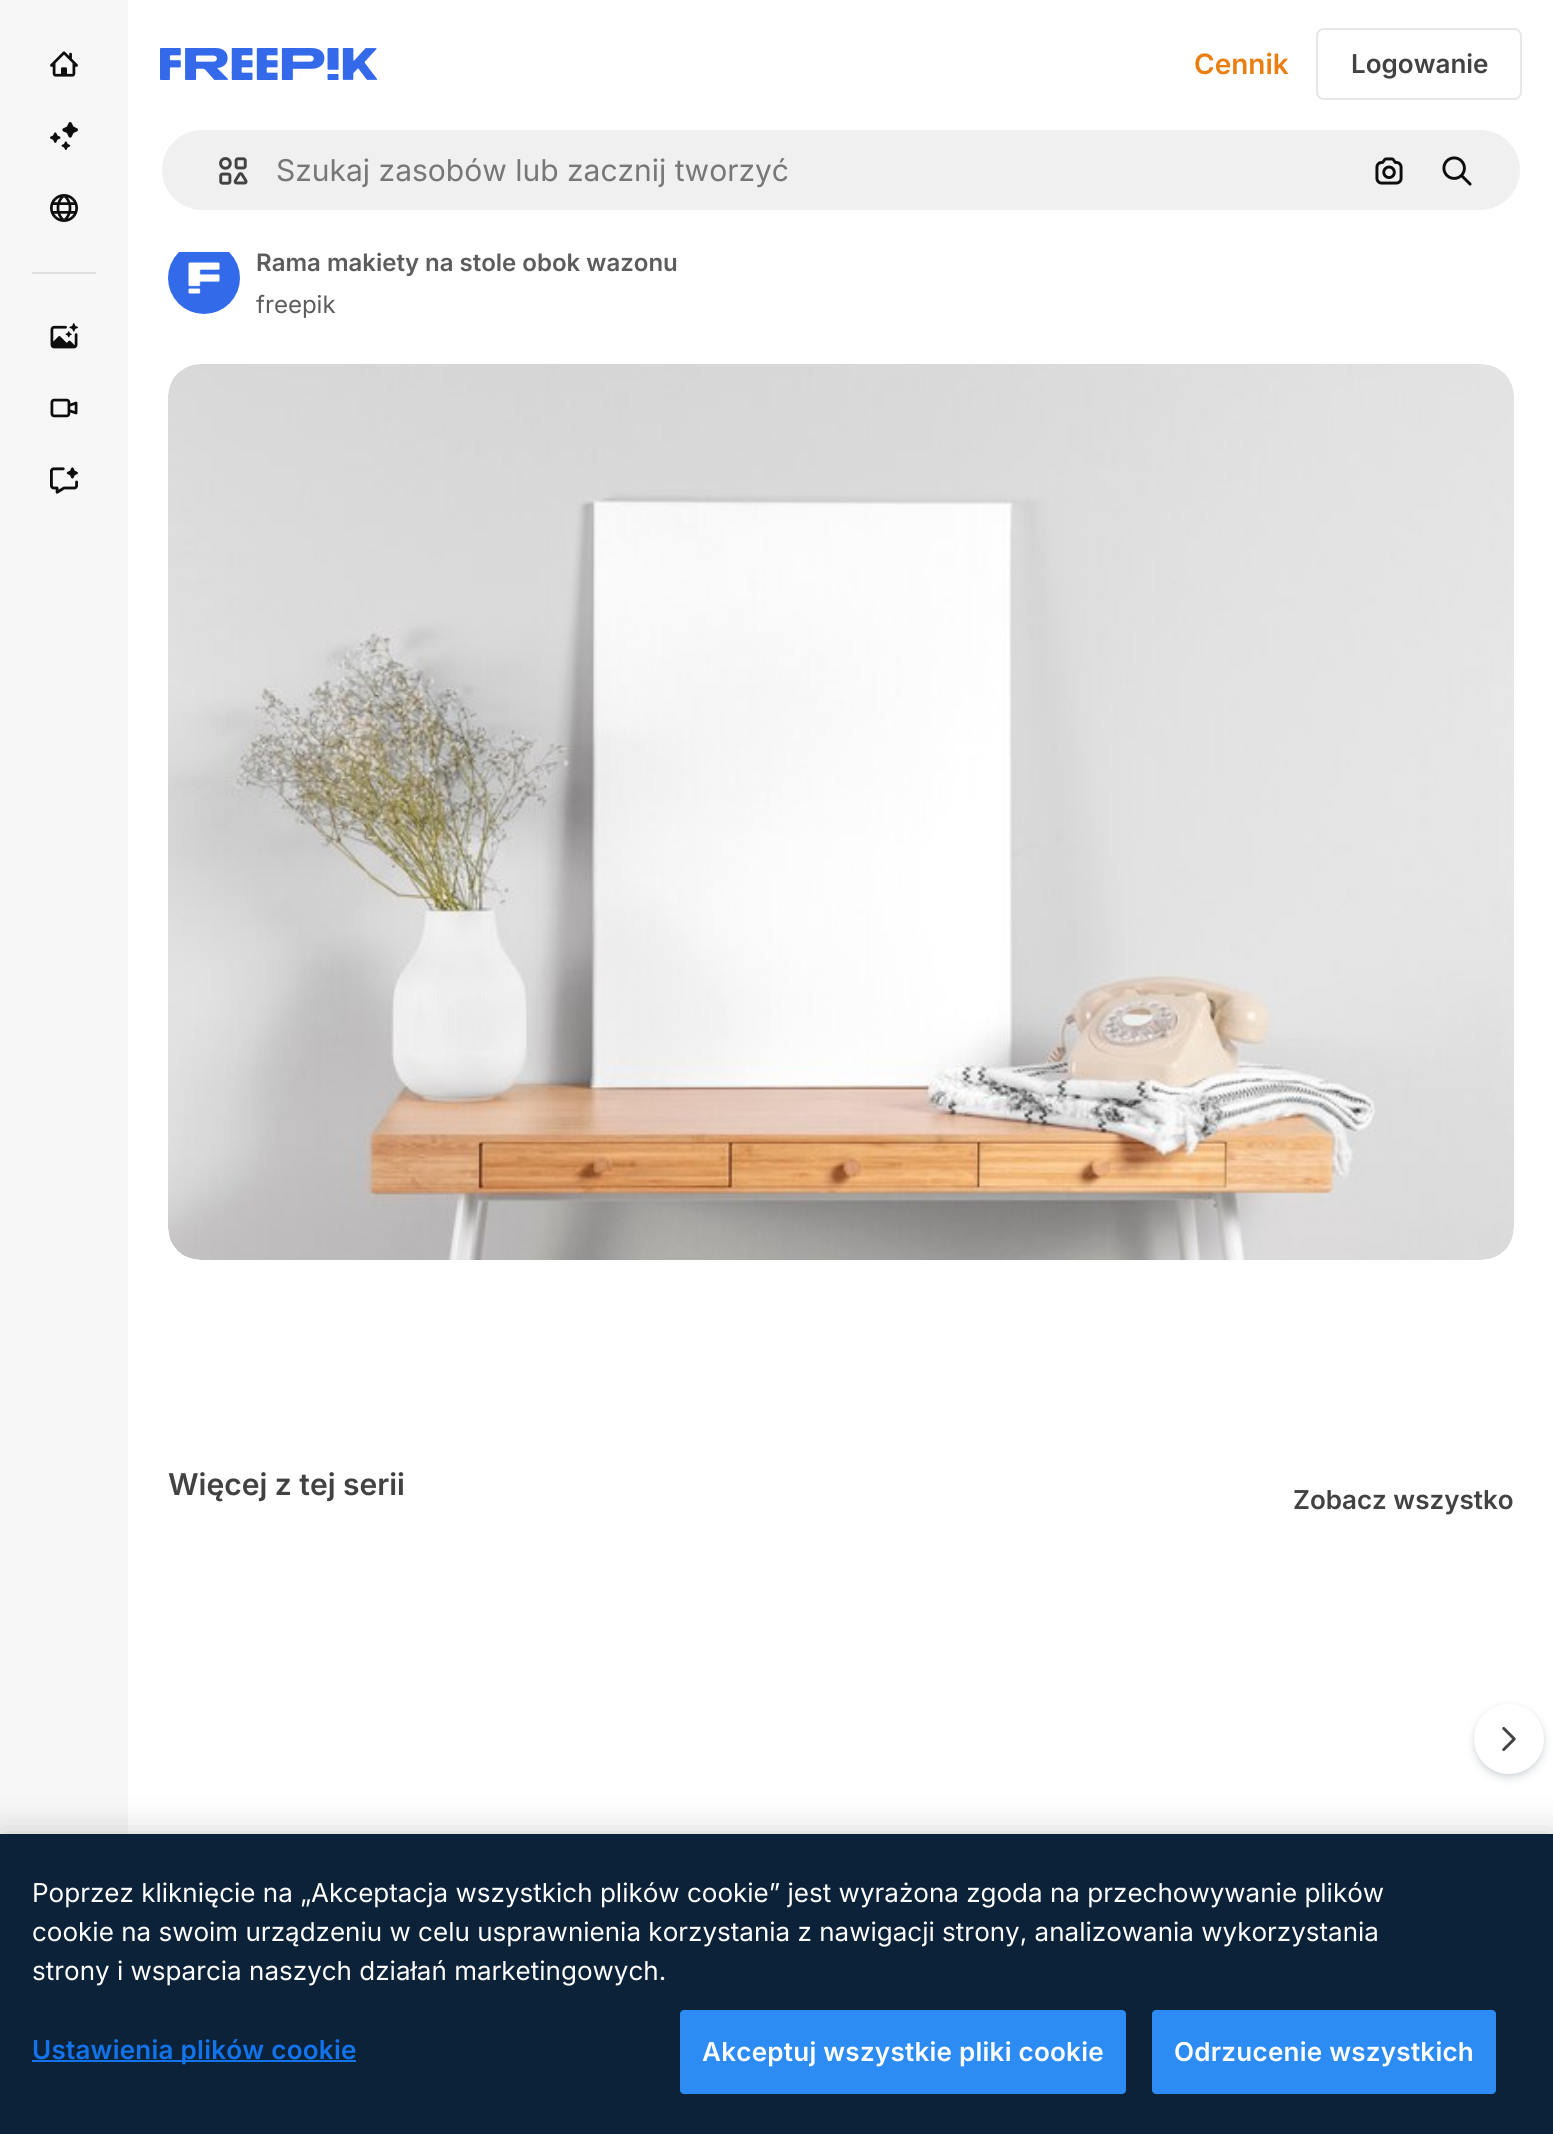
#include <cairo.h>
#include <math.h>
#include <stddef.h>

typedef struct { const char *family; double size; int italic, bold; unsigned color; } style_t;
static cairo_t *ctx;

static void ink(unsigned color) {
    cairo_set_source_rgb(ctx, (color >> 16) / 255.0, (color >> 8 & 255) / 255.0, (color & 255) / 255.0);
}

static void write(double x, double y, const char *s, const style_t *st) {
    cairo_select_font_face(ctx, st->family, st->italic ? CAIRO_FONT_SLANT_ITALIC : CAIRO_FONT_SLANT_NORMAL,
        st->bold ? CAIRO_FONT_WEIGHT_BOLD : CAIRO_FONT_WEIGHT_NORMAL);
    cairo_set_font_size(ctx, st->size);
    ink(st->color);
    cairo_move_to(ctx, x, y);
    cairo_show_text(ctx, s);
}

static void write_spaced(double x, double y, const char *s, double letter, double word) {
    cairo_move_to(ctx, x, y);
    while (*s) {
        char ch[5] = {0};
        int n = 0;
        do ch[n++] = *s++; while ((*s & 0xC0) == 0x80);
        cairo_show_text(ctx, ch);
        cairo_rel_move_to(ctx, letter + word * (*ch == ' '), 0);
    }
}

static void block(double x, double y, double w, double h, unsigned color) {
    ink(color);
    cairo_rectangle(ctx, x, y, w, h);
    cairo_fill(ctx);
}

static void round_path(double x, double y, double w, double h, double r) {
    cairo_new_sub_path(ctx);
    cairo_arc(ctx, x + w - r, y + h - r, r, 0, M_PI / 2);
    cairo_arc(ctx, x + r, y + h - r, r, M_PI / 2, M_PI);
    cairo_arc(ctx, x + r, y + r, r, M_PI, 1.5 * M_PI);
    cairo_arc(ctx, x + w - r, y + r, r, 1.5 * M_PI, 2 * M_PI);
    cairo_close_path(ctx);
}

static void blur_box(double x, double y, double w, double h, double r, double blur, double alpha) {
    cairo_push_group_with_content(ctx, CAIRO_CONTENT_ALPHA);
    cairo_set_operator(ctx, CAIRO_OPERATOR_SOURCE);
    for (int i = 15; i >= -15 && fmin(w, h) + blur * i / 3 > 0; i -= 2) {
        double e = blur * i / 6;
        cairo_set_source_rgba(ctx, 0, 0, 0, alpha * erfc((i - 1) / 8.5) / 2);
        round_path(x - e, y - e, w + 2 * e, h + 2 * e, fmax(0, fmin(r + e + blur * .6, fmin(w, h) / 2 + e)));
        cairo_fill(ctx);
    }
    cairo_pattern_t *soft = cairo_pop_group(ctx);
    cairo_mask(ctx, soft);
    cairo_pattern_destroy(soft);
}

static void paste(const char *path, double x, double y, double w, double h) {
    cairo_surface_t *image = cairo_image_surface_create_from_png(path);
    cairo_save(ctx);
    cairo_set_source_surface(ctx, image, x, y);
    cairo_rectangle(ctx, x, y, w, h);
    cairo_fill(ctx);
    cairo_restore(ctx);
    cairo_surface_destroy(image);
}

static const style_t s1 = {"Inter SemiBold", 28, 0, 0, 0xea7e11};
static const style_t s2 = {"Inter SemiBold", 26, 0, 0, 0x424242};
static const style_t s3 = {"Inter", 30, 0, 0, 0x777777};
static const style_t s4 = {"Inter SemiBold", 24, 0, 0, 0x5c5c5c};
static const style_t s5 = {"Inter", 24, 0, 0, 0x5c5c5c};
static const style_t s6 = {"Inter SemiBold", 30, 0, 0, 0x424242};
static const style_t s7 = {"Inter", 26.02, 0, 0, 0xffffff};

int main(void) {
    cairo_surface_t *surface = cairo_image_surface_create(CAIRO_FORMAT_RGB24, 1553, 2134);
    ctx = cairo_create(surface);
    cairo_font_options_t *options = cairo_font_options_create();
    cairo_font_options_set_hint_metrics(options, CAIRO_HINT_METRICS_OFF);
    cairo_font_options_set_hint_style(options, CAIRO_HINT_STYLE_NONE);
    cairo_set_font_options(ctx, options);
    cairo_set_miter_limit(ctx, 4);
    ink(0xffffff);
    cairo_paint(ctx);
    block(0, 0, 128, 1834, 0xf7f7f7);
    paste("pic1.png", 50, 51, 28, 26);
    paste("pic2.png", 50, 122, 28, 28);
    paste("pic3.png", 50, 194, 28, 28);
    block(32, 272, 64, 2, 0xe0e0e0);
    paste("pic4.png", 50, 323, 28, 26);
    paste("pic5.png", 50, 398, 28, 20);
    paste("pic6.png", 50, 467, 28, 27);
    paste("pic7.png", 160, 48, 218, 32);
    write(1194, 74, "Cennik", &s1);
    round_path(1317, 29, 204, 70, 7);
    ink(0xe7e7e7);
    cairo_stroke(ctx);
    write(1351, 73, "Logowanie", &s2);
    ink(0xf0f0f0);
    round_path(161, 129, 1360, 82, 41);
    cairo_fill_preserve(ctx);
    ink(0xffffff);
    cairo_stroke(ctx);
    paste("pic8.png", 219, 157, 29, 28);
    write(276, 181, "Szukaj zasobów lub zacznij tworzyć", &s3);
    paste("pic9.png", 1375, 157, 28, 28);
    paste("pic10.png", 1442, 156, 30, 30);
    paste("pic11.png", 168, 252, 72, 62);
    write(256, 271, "Rama makiety na stole obok wazonu", &s4);
    write(256, 313, "freepik", &s5);
    paste("pic12.png", 168, 364, 1346, 896);
    write(168, 1495, "Więcej z tej serii", &s6);
    write(1293, 1509, "Zobacz wszystko", &s2);
    ink(0x374957);
    blur_box(1474, 1708, 70, 70, 35, 5, 0.15);
    blur_box(1474, 1706, 70, 70, 35, 2, 0.1);
    ink(0xffffff);
    cairo_arc(ctx, 1509, 1739, 35, 0, 2 * M_PI);
    cairo_fill(ctx);
    paste("pic13.png", 1502, 1726, 14, 26);
    ink(0x000000);
    blur_box(0, 1834, 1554, 300, 0, 18, 0.2);
    block(0, 1834, 1553, 300, 0x0b2239);
    write(32, 1902, "Poprzez kliknięcie na „Akceptacja wszystkich plików cookie” jest wyrażona zgoda na przechowywanie plików", &s7);
    write(32, 1941, "cookie na swoim urządzeniu w celu usprawnienia korzystania z nawigacji strony, analizowania wykorzystania", &s7);
    write(32, 1980, "strony i wsparcia naszych działań marketingowych.", &s7);
    block(32, 2060, 324, 2, 0x1273eb);
    cairo_select_font_face(ctx, "Inter SemiBold", CAIRO_FONT_SLANT_NORMAL, CAIRO_FONT_WEIGHT_NORMAL);
    write_spaced(32, 2059, "Ustawienia plików cookie", 0.25, 0);
    ink(0x2c8cf4);
    round_path(681, 2011, 444, 82, 3);
    cairo_fill_preserve(ctx);
    cairo_stroke(ctx);
    ink(0xffffff);
    write_spaced(702, 2061, "Akceptuj wszystkie pliki cookie", 0.25, 0);
    ink(0x2c8cf4);
    round_path(1153, 2011, 342, 82, 3);
    cairo_fill_preserve(ctx);
    cairo_stroke(ctx);
    ink(0xffffff);
    write_spaced(1174, 2061, "Odrzucenie wszystkich", 0.25, 0);
    cairo_surface_write_to_png(surface, "screenshot.png");
    cairo_font_options_destroy(options);
    cairo_destroy(ctx);
    cairo_surface_destroy(surface);
    return 0;
}
